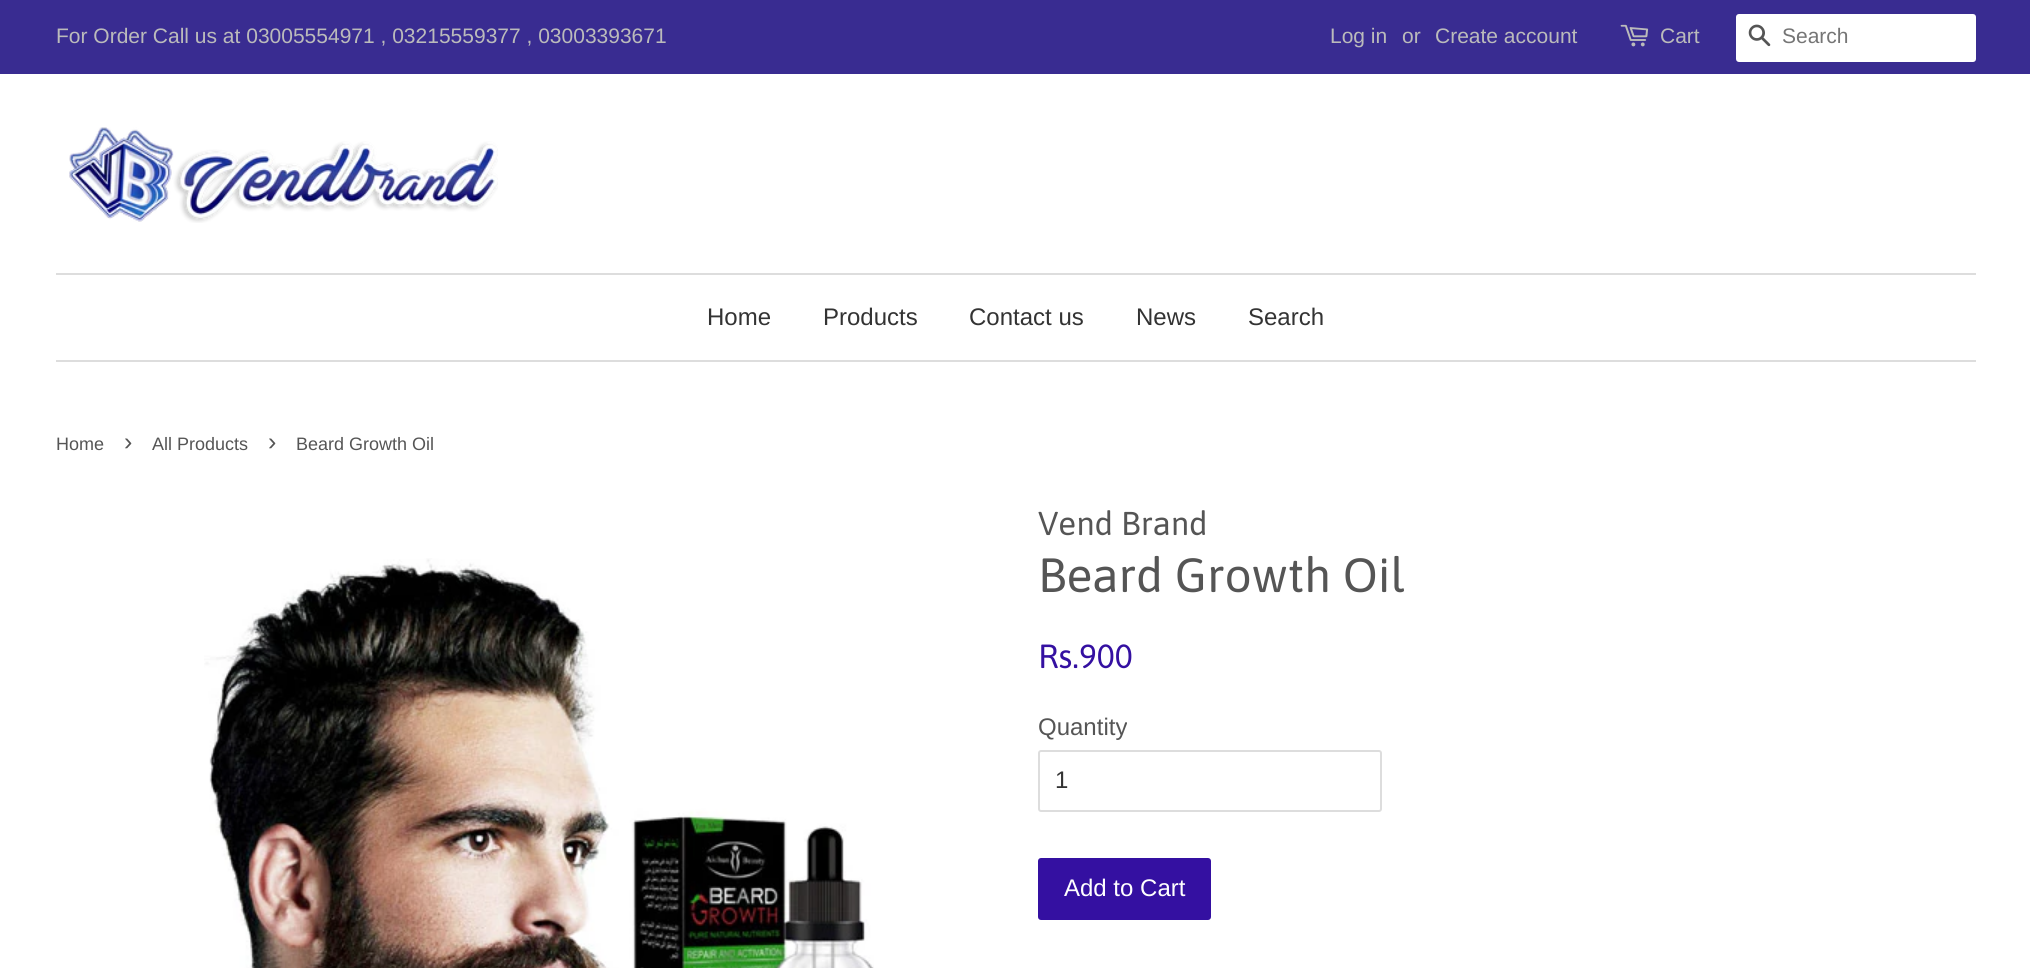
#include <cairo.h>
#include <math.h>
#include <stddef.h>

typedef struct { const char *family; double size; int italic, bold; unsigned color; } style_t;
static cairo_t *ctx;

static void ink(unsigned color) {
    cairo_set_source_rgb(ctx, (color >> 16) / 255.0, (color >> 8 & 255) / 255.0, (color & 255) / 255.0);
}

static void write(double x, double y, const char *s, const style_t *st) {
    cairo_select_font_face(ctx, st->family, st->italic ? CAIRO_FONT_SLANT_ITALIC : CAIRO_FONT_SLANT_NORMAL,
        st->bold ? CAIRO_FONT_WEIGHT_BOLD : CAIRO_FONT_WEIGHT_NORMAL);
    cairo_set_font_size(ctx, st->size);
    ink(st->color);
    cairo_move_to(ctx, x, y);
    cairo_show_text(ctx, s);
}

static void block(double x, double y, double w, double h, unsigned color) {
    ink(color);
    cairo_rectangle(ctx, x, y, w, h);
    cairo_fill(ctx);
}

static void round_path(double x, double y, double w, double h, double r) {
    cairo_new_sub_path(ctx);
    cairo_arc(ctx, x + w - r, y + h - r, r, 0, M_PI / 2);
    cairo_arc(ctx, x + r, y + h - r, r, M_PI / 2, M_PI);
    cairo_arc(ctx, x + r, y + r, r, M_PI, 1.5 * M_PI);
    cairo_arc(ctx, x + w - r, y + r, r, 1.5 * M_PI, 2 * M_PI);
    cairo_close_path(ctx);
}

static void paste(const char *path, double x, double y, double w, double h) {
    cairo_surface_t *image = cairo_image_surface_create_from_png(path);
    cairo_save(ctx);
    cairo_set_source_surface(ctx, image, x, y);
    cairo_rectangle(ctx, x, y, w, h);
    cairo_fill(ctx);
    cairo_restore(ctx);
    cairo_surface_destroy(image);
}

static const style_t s1 = {"Liberation Sans", 21, 0, 0, 0xbbbbbb};
static const style_t s2 = {"Liberation Sans", 21, 0, 0, 0x757575};
static const style_t s3 = {"Liberation Sans", 24, 0, 0, 0x333333};
static const style_t s4 = {"Liberation Sans", 18, 0, 0, 0x555555};
static const style_t s5 = {"Liberation Sans", 25, 0, 0, 0x555555};
static const style_t s6 = {"Asap", 33, 0, 0, 0x555555};
static const style_t s7 = {"Asap", 48, 0, 0, 0x555555};
static const style_t s8 = {"Asap", 33.5, 0, 0, 0x3410a1};
static const style_t s9 = {"Liberation Sans", 24, 0, 0, 0x555555};
static const style_t s10 = {"Liberation Sans", 24, 0, 0, 0xffffff};

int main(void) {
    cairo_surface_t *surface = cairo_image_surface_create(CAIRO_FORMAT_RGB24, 2030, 968);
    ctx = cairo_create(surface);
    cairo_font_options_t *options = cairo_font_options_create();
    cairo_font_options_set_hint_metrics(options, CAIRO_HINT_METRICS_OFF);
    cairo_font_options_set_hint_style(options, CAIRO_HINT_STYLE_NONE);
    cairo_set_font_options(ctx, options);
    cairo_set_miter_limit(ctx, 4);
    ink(0xffffff);
    cairo_paint(ctx);
    block(0, 0, 2030, 74, 0x392c91);
    write(56, 43, "For Order Call us at 03005554971 , 03215559377 , 03003393671", &s1);
    write(1330, 43, "Log in", &s1);
    write(1402, 43, "or", &s1);
    write(1435, 43, "Create account", &s1);
    paste("pic1.png", 1620, 24, 29, 23);
    write(1660, 43, "Cart", &s1);
    ink(0xffffff);
    round_path(1736, 14, 240, 48, 3);
    cairo_fill(ctx);
    paste("pic2.png", 1748, 24, 23, 23);
    write(1782, 43, "Search", &s2);
    paste("pic3.png", 69, 127, 429, 96);
    block(56, 273, 1920, 2, 0xdddddd);
    block(56, 360, 1920, 2, 0xdddddd);
    write(707, 325, "Home", &s3);
    write(823, 325, "Products", &s3);
    write(969, 325, "Contact us", &s3);
    write(1136, 325, "News", &s3);
    write(1248, 325, "Search", &s3);
    write(56, 450, "Home", &s4);
    write(124, 450, "›", &s5);
    write(152, 450, "All Products", &s4);
    write(268, 450, "›", &s5);
    write(296, 450, "Beard Growth Oil", &s4);
    paste("pic4.png", 204, 558, 670, 410);
    write(1038, 535, "Vend Brand", &s6);
    write(1038, 592, "Beard Growth Oil", &s7);
    write(1038, 668, "Rs.900", &s8);
    write(1038, 735, "Quantity", &s9);
    round_path(1039, 751, 342, 60, 2);
    ink(0xdddddd);
    cairo_stroke(ctx);
    write(1055, 788, "1", &s3);
    ink(0x3410a1);
    round_path(1038, 858, 173, 62, 3);
    cairo_fill(ctx);
    write(1064, 896, "Add to Cart", &s10);
    cairo_surface_write_to_png(surface, "screenshot.png");
    cairo_font_options_destroy(options);
    cairo_destroy(ctx);
    cairo_surface_destroy(surface);
    return 0;
}
